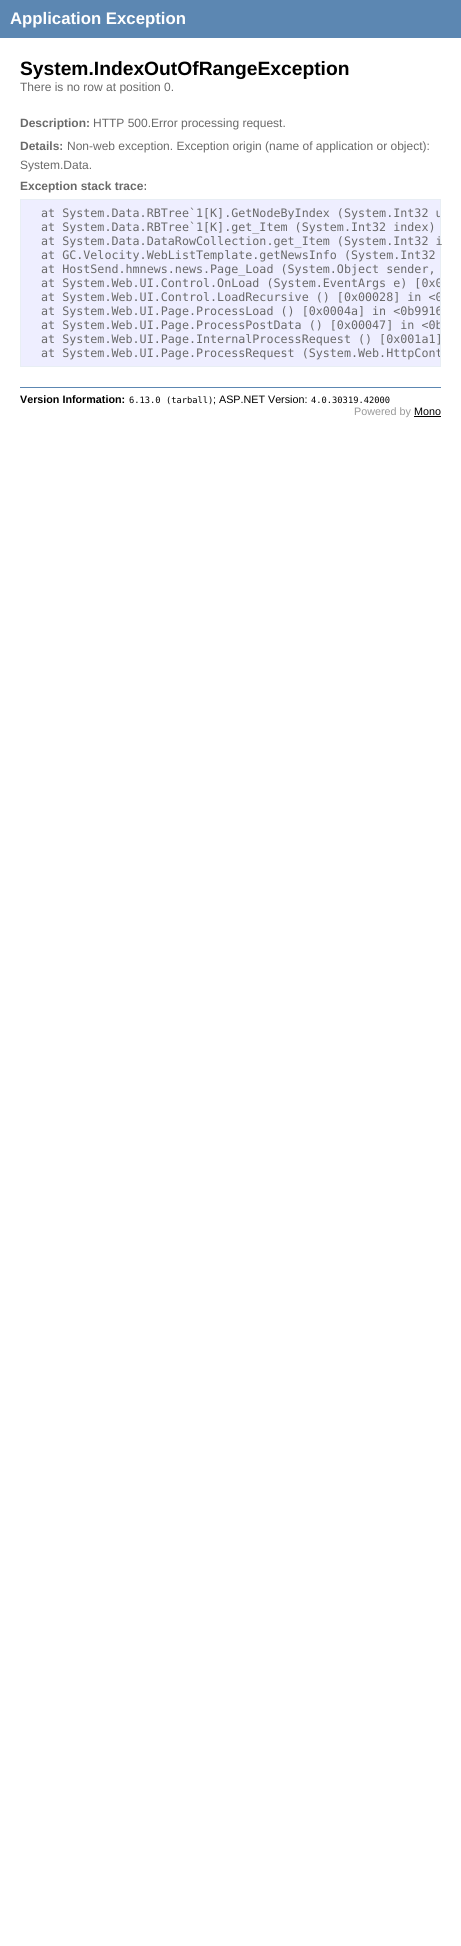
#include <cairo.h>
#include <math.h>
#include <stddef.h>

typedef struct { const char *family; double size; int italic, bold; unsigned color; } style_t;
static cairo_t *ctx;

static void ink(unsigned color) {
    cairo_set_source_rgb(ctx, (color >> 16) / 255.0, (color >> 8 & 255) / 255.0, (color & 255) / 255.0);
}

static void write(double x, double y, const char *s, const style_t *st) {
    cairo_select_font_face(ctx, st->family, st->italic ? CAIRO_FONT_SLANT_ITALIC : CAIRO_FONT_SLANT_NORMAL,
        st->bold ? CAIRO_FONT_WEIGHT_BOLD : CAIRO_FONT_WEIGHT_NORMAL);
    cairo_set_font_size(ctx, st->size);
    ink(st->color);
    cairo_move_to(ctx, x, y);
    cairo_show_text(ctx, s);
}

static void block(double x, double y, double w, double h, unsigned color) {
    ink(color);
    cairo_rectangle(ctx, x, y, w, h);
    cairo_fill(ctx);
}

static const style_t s1 = {"Liberation Sans", 16.75, 0, 1, 0xffffff};
static const style_t s2 = {"Liberation Sans", 19.25, 0, 1, 0x000000};
static const style_t s3 = {"Liberation Sans", 12, 0, 0, 0x696969};
static const style_t s4 = {"Liberation Sans", 12, 0, 1, 0x696969};
static const style_t s5 = {"DejaVu Sans Mono", 11.7, 0, 0, 0x696969};
static const style_t s6 = {"Liberation Sans", 10.75, 0, 1, 0x000000};
static const style_t s7 = {"DejaVu Sans Mono", 8.75, 0, 0, 0x000000};
static const style_t s8 = {"Liberation Sans", 10.75, 0, 0, 0x000000};
static const style_t s9 = {"Liberation Sans", 10.75, 0, 0, 0x999999};

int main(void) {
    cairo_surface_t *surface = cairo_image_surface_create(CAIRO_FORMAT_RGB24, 461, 1946);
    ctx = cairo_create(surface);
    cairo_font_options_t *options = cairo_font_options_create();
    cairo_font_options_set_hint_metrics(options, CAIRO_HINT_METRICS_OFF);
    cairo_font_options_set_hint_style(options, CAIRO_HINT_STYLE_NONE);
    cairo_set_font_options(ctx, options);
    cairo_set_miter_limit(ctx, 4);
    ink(0xffffff);
    cairo_paint(ctx);
    block(0, 0, 461, 38, 0x5c87b2);
    write(10, 24, "Application Exception", &s1);
    write(20, 75, "System.IndexOutOfRangeException", &s2);
    write(20, 91, "There is no row at position 0.", &s3);
    write(20, 127, "Description:", &s4);
    write(93, 127, "HTTP 500.Error processing request.", &s3);
    write(20, 150, "Details:", &s4);
    write(67, 150, "Non-web exception. Exception origin (name of application or object):", &s3);
    write(20, 169, "System.Data.", &s3);
    write(20, 190, "Exception stack trace:", &s4);
    ink(0xeeeeff);
    cairo_rectangle(ctx, 20.5, 199.5, 420, 167);
    cairo_fill_preserve(ctx);
    ink(0xe8eef4);
    cairo_set_line_width(ctx, 1);
    cairo_stroke(ctx);
    cairo_save(ctx);
    cairo_rectangle(ctx, 21, 200, 419, 166);
    cairo_clip(ctx);
    write(41, 217, "at System.Data.RBTree`1[K].GetNodeByIndex (System.Int32 u", &s5);
    cairo_restore(ctx);
    write(41, 231, "at System.Data.RBTree`1[K].get_Item (System.Int32 index)", &s5);
    write(41, 245, "at System.Data.DataRowCollection.get_Item (System.Int32 i", &s5);
    write(41, 259, "at GC.Velocity.WebListTemplate.getNewsInfo (System.Int32", &s5);
    write(41, 273, "at HostSend.hmnews.news.Page_Load (System.Object sender,", &s5);
    cairo_save(ctx);
    cairo_rectangle(ctx, 21, 200, 419, 166);
    cairo_clip(ctx);
    write(41, 287, "at System.Web.UI.Control.OnLoad (System.EventArgs e) [0x0", &s5);
    write(41, 301, "at System.Web.UI.Control.LoadRecursive () [0x00028] in <0", &s5);
    write(41, 315, "at System.Web.UI.Page.ProcessLoad () [0x0004a] in <0b9916", &s5);
    write(41, 329, "at System.Web.UI.Page.ProcessPostData () [0x00047] in <0b", &s5);
    cairo_restore(ctx);
    write(41, 343, "at System.Web.UI.Page.InternalProcessRequest () [0x001a1]", &s5);
    cairo_save(ctx);
    cairo_rectangle(ctx, 21, 200, 419, 166);
    cairo_clip(ctx);
    write(41, 357, "at System.Web.UI.Page.ProcessRequest (System.Web.HttpCont", &s5);
    cairo_restore(ctx);
    block(20, 387, 421, 1, 0x5c87b2);
    write(20, 403, "Version Information:", &s6);
    write(129, 403, "6.13.0 (tarball)", &s7);
    write(213, 403, "; ASP.NET Version:", &s8);
    write(311, 403, "4.0.30319.42000", &s7);
    write(354, 415, "Powered by", &s9);
    write(414, 415, "Mono", &s8);
    block(414, 416, 27, 1, 0x000000);
    cairo_surface_write_to_png(surface, "screenshot.png");
    cairo_font_options_destroy(options);
    cairo_destroy(ctx);
    cairo_surface_destroy(surface);
    return 0;
}
